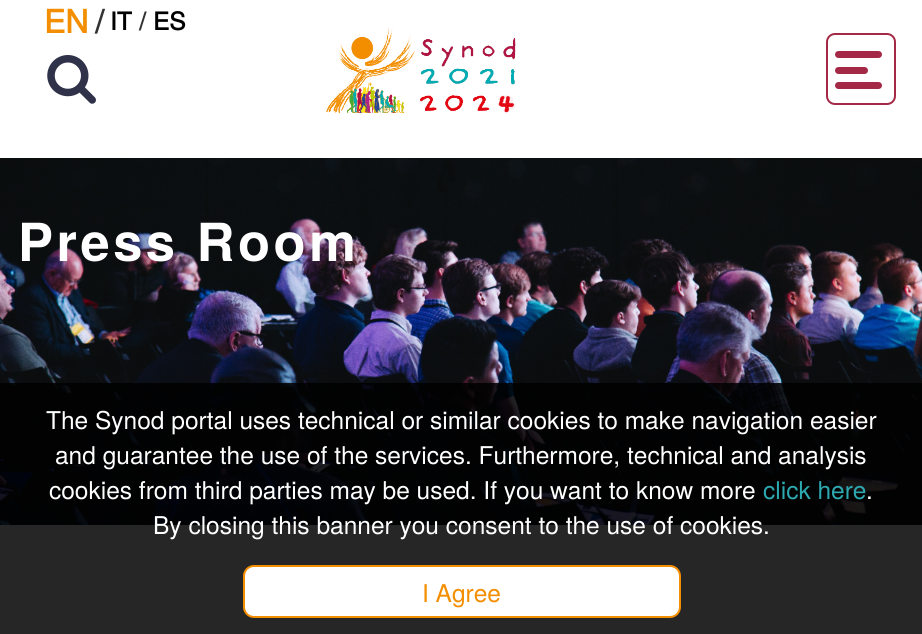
#include <cairo.h>
#include <math.h>
#include <stddef.h>

typedef struct { const char *family; double size; int italic, bold; unsigned color; } style_t;
static cairo_t *ctx;

static void ink(unsigned color) {
    cairo_set_source_rgb(ctx, (color >> 16) / 255.0, (color >> 8 & 255) / 255.0, (color & 255) / 255.0);
}

static void write(double x, double y, const char *s, const style_t *st) {
    cairo_select_font_face(ctx, st->family, st->italic ? CAIRO_FONT_SLANT_ITALIC : CAIRO_FONT_SLANT_NORMAL,
        st->bold ? CAIRO_FONT_WEIGHT_BOLD : CAIRO_FONT_WEIGHT_NORMAL);
    cairo_set_font_size(ctx, st->size);
    ink(st->color);
    cairo_move_to(ctx, x, y);
    cairo_show_text(ctx, s);
}

static void write_spaced(double x, double y, const char *s, double letter, double word) {
    cairo_move_to(ctx, x, y);
    while (*s) {
        char ch[5] = {0};
        int n = 0;
        do ch[n++] = *s++; while ((*s & 0xC0) == 0x80);
        cairo_show_text(ctx, ch);
        cairo_rel_move_to(ctx, letter + word * (*ch == ' '), 0);
    }
}

static void round_path(double x, double y, double w, double h, double r) {
    cairo_new_sub_path(ctx);
    cairo_arc(ctx, x + w - r, y + h - r, r, 0, M_PI / 2);
    cairo_arc(ctx, x + r, y + h - r, r, M_PI / 2, M_PI);
    cairo_arc(ctx, x + r, y + r, r, M_PI, 1.5 * M_PI);
    cairo_arc(ctx, x + w - r, y + r, r, 1.5 * M_PI, 2 * M_PI);
    cairo_close_path(ctx);
}

static void paste(const char *path, double x, double y, double w, double h) {
    cairo_surface_t *image = cairo_image_surface_create_from_png(path);
    cairo_save(ctx);
    cairo_set_source_surface(ctx, image, x, y);
    cairo_rectangle(ctx, x, y, w, h);
    cairo_fill(ctx);
    cairo_restore(ctx);
    cairo_surface_destroy(image);
}

static const style_t s1 = {"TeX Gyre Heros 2", 32, 0, 1, 0xf38e00};
static const style_t s2 = {"TeX Gyre Heros 2", 32, 0, 1, 0x333333};
static const style_t s3 = {"TeX Gyre Heros 2", 24.5, 0, 1, 0x000000};
static const style_t s4 = {"TeX Gyre Heros 2", 24.5, 0, 1, 0x333333};
static const style_t s5 = {"TeX Gyre Heros", 24.5, 0, 0, 0xffffff};
static const style_t s6 = {"TeX Gyre Heros", 24.5, 0, 0, 0x2da9b1};
static const style_t s7 = {"TeX Gyre Heros", 24.5, 0, 0, 0xf38e00};

int main(void) {
    cairo_surface_t *surface = cairo_image_surface_create(CAIRO_FORMAT_RGB24, 922, 634);
    ctx = cairo_create(surface);
    cairo_font_options_t *options = cairo_font_options_create();
    cairo_font_options_set_hint_metrics(options, CAIRO_HINT_METRICS_OFF);
    cairo_font_options_set_hint_style(options, CAIRO_HINT_STYLE_NONE);
    cairo_set_font_options(ctx, options);
    cairo_set_miter_limit(ctx, 4);
    ink(0xffffff);
    cairo_paint(ctx);
    write(44, 33, "EN", &s1);
    write(95, 33, "/", &s2);
    write(110, 30, "IT", &s3);
    write(139, 30, "/", &s4);
    write(153, 30, "ES", &s3);
    paste("pic1.png", 47, 55, 49, 49);
    paste("pic2.png", 326, 28, 190, 86);
    round_path(827, 34, 68, 70, 8);
    ink(0xa42946);
    cairo_stroke(ctx);
    cairo_new_path(ctx);
    cairo_move_to(ctx, 838.5, 51);
    cairo_line_to(ctx, 859, 51);
    cairo_line_to(ctx, 859, 58);
    cairo_line_to(ctx, 838.5, 58);
    cairo_curve_to(ctx, 836.5, 58, 835, 56.5, 835, 54.5);
    cairo_curve_to(ctx, 835, 52.5, 836.5, 51, 838.5, 51);
    cairo_close_path(ctx);
    cairo_fill(ctx);
    cairo_new_path(ctx);
    cairo_move_to(ctx, 858, 51);
    cairo_line_to(ctx, 878.5, 51);
    cairo_curve_to(ctx, 880.5, 51, 882, 52.5, 882, 54.5);
    cairo_curve_to(ctx, 882, 56.5, 880.5, 58, 878.5, 58);
    cairo_line_to(ctx, 858, 58);
    cairo_close_path(ctx);
    cairo_fill(ctx);
    cairo_new_path(ctx);
    cairo_move_to(ctx, 838.5, 67);
    cairo_line_to(ctx, 859, 67);
    cairo_line_to(ctx, 859, 74);
    cairo_line_to(ctx, 838.5, 74);
    cairo_curve_to(ctx, 836.5, 74, 835, 72.5, 835, 70.5);
    cairo_curve_to(ctx, 835, 68.5, 836.5, 67, 838.5, 67);
    cairo_close_path(ctx);
    cairo_fill(ctx);
    cairo_new_path(ctx);
    cairo_move_to(ctx, 844, 67);
    cairo_line_to(ctx, 864.5, 67);
    cairo_curve_to(ctx, 866.5, 67, 868, 68.5, 868, 70.5);
    cairo_curve_to(ctx, 868, 72.5, 866.5, 74, 864.5, 74);
    cairo_line_to(ctx, 844, 74);
    cairo_close_path(ctx);
    cairo_fill(ctx);
    cairo_new_path(ctx);
    cairo_move_to(ctx, 838.5, 82);
    cairo_line_to(ctx, 859, 82);
    cairo_line_to(ctx, 859, 89);
    cairo_line_to(ctx, 838.5, 89);
    cairo_curve_to(ctx, 836.5, 89, 835, 87.5, 835, 85.5);
    cairo_curve_to(ctx, 835, 83.5, 836.5, 82, 838.5, 82);
    cairo_close_path(ctx);
    cairo_fill(ctx);
    cairo_new_path(ctx);
    cairo_move_to(ctx, 858, 82);
    cairo_line_to(ctx, 878.5, 82);
    cairo_curve_to(ctx, 880.5, 82, 882, 83.5, 882, 85.5);
    cairo_curve_to(ctx, 882, 87.5, 880.5, 89, 878.5, 89);
    cairo_line_to(ctx, 858, 89);
    cairo_close_path(ctx);
    cairo_fill(ctx);
    paste("pic3.png", 0, 158, 922, 367);
    cairo_select_font_face(ctx, "TeX Gyre Heros", CAIRO_FONT_SLANT_NORMAL, CAIRO_FONT_WEIGHT_BOLD);
    cairo_set_font_size(ctx, 52.5);
    ink(0xffffff);
    write_spaced(18, 261, "Press Room", 3.5, 0);
    cairo_set_source_rgba(ctx, 0, 0, 0, 0.85);
    cairo_rectangle(ctx, 0, 383, 922, 251);
    cairo_fill(ctx);
    write(46, 429, "The Synod portal uses technical or similar cookies to make navigation easier", &s5);
    write(55, 464, "and guarantee the use of the services. Furthermore, technical and analysis", &s5);
    write(49, 499, "cookies from third parties may be used. If you want to know more", &s5);
    write(763, 499, "click here", &s6);
    write(866, 499, ".", &s5);
    write(153, 534, "By closing this banner you consent to the use of cookies.", &s5);
    round_path(244, 566, 436, 51, 10);
    cairo_fill_preserve(ctx);
    ink(0xf38e00);
    cairo_stroke(ctx);
    write(422, 602, "I Agree", &s7);
    cairo_surface_write_to_png(surface, "screenshot.png");
    cairo_font_options_destroy(options);
    cairo_destroy(ctx);
    cairo_surface_destroy(surface);
    return 0;
}
